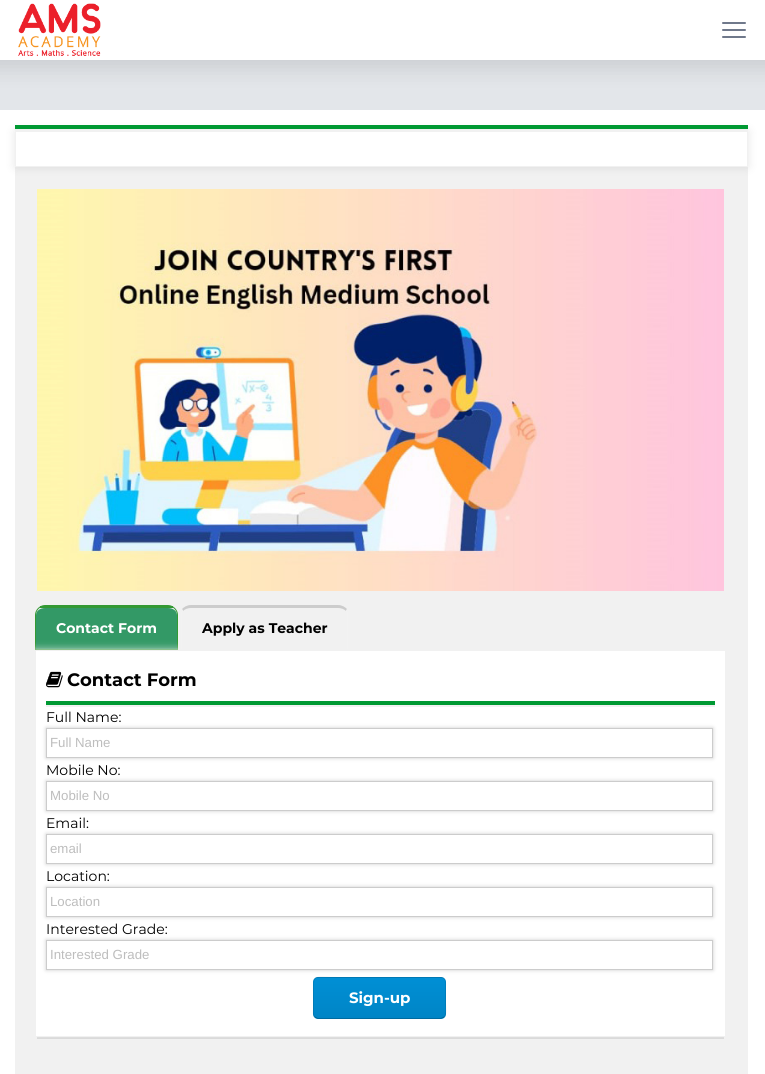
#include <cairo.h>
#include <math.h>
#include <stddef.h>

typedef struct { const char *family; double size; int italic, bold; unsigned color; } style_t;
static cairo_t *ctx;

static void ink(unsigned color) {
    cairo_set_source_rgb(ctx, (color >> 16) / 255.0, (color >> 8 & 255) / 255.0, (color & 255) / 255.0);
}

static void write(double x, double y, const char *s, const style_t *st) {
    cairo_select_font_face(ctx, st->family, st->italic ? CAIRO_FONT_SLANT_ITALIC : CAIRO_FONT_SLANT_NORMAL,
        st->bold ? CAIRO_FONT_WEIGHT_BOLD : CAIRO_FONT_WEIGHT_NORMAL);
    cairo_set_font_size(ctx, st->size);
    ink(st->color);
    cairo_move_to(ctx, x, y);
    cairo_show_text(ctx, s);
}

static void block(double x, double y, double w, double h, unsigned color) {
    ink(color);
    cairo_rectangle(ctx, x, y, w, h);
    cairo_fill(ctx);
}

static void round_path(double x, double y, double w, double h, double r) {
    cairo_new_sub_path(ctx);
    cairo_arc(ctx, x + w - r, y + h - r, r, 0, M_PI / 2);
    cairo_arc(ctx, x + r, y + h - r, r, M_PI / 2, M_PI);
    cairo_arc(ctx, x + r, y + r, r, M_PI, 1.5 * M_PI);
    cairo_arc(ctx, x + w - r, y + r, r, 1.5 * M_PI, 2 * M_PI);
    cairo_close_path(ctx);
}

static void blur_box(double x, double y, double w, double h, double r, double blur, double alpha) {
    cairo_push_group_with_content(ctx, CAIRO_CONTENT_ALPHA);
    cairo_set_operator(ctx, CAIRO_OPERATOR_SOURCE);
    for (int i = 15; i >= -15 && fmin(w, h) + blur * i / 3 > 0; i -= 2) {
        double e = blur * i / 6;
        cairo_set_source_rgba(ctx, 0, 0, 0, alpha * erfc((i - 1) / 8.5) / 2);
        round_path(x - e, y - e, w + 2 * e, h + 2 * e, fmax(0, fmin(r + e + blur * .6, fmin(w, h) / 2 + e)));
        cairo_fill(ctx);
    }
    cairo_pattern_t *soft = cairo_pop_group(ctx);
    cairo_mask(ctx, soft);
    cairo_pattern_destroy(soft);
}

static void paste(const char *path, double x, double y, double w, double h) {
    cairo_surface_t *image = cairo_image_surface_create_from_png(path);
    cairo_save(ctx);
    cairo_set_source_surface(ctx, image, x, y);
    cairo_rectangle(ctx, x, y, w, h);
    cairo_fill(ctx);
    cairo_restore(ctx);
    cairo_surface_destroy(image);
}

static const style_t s1 = {"Montserrat", 14, 0, 1, 0xffffff};
static const style_t s2 = {"Montserrat", 14, 0, 1, 0x000000};
static const style_t s3 = {"Montserrat", 18, 0, 1, 0x000000};
static const style_t s4 = {"Montserrat", 14, 0, 0, 0x000000};
static const style_t s5 = {"Liberation Sans", 13.25, 0, 0, 0xbdbdbd};
static const style_t s6 = {"Montserrat", 15, 0, 1, 0xffffff};

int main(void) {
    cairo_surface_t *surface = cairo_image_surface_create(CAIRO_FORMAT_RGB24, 765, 1074);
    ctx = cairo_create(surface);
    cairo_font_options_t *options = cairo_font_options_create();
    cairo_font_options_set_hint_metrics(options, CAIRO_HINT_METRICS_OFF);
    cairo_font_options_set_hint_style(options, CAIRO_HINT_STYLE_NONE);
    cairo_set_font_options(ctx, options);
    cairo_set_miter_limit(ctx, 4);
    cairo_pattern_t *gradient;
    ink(0xffffff);
    cairo_paint(ctx);
    block(0, 60, 765, 50, 0xe3e6ea);
    ink(0x000000);
    blur_box(-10, -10, 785, 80, 0, 10, 0.1);
    block(0, 0, 765, 60, 0xffffff);
    paste("pic1.png", 18, 3, 83, 53);
    ink(0x70798b);
    round_path(722, 36, 24, 2, 1);
    cairo_fill(ctx);
    round_path(722, 29, 24, 2, 1);
    cairo_fill(ctx);
    round_path(722, 22, 24, 2, 1);
    cairo_fill(ctx);
    block(15, 167, 733, 907, 0xf1f1f1);
    cairo_save(ctx);
    cairo_set_fill_rule(ctx, CAIRO_FILL_RULE_EVEN_ODD);
    cairo_new_path(ctx);
    cairo_move_to(ctx, 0, 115);
    cairo_line_to(ctx, 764, 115);
    cairo_line_to(ctx, 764, 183);
    cairo_line_to(ctx, 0, 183);
    cairo_close_path(ctx);
    cairo_move_to(ctx, 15, 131);
    cairo_line_to(ctx, 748, 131);
    cairo_line_to(ctx, 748, 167);
    cairo_line_to(ctx, 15, 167);
    cairo_close_path(ctx);
    cairo_clip(ctx);
    ink(0x000000);
    blur_box(15, 131, 733, 36, 0, 5, 0.1);
    cairo_restore(ctx);
    cairo_rectangle(ctx, 15.5, 131.5, 732, 35);
    cairo_set_line_width(ctx, 1);
    cairo_stroke(ctx);
    block(15, 125, 733, 4, 0x009933);
    block(15, 129, 733, 2, 0xf1f1f1);
    paste("pic2.png", 37, 189, 687, 402);
    block(37, 1037, 687, 2, 0xcccccc);
    ink(0x339966);
    cairo_new_path(ctx);
    cairo_move_to(ctx, 45, 608);
    cairo_line_to(ctx, 168, 608);
    cairo_curve_to(ctx, 173, 608, 177, 611, 177, 615);
    cairo_line_to(ctx, 177, 649);
    cairo_line_to(ctx, 36, 649);
    cairo_line_to(ctx, 36, 615);
    cairo_curve_to(ctx, 36, 611, 40, 608, 45, 608);
    cairo_close_path(ctx);
    cairo_fill(ctx);
    cairo_new_path(ctx);
    cairo_move_to(ctx, 45, 605.5);
    cairo_line_to(ctx, 168, 605.5);
    cairo_curve_to(ctx, 173, 605.5, 177.5, 610, 177.5, 615);
    cairo_line_to(ctx, 177.5, 649.5);
    cairo_line_to(ctx, 35.5, 649.5);
    cairo_line_to(ctx, 35.5, 615);
    cairo_curve_to(ctx, 35.5, 610, 40, 605.5, 45, 605.5);
    cairo_close_path(ctx);
    ink(0x339933);
    cairo_stroke(ctx);
    block(40, 606, 133, 2, 0x339933);
    write(56, 633, "Contact Form", &s1);
    ink(0xcccccc);
    cairo_new_path(ctx);
    cairo_move_to(ctx, 191, 605);
    cairo_curve_to(ctx, 187, 605, 184, 607, 182, 609);
    cairo_line_to(ctx, 183, 611);
    cairo_curve_to(ctx, 185, 609, 188, 608, 191, 608);
    cairo_line_to(ctx, 338, 608);
    cairo_curve_to(ctx, 341, 608, 344, 609, 346, 611);
    cairo_line_to(ctx, 347, 609);
    cairo_curve_to(ctx, 345, 607, 342, 605, 338, 605);
    cairo_close_path(ctx);
    cairo_fill(ctx);
    ink(0xf1f1f1);
    blur_box(35, 650, 691, 387, 0, 4, 1);
    ink(0xf2f2f2);
    cairo_new_path(ctx);
    cairo_move_to(ctx, 348, 650);
    cairo_line_to(ctx, 348, 615);
    cairo_curve_to(ctx, 348, 613, 347, 611, 347, 609);
    cairo_line_to(ctx, 346, 611);
    cairo_curve_to(ctx, 347, 613, 347, 614, 347, 615);
    cairo_line_to(ctx, 347, 649);
    cairo_close_path(ctx);
    cairo_fill(ctx);
    cairo_new_path(ctx);
    cairo_move_to(ctx, 181, 650);
    cairo_line_to(ctx, 182, 649);
    cairo_line_to(ctx, 182, 615);
    cairo_curve_to(ctx, 182, 614, 182, 613, 183, 611);
    cairo_line_to(ctx, 182, 609);
    cairo_curve_to(ctx, 182, 611, 181, 613, 181, 615);
    cairo_close_path(ctx);
    cairo_fill(ctx);
    write(202, 633, "Apply as Teacher", &s2);
    block(36, 651, 689, 385, 0xffffff);
    paste("pic3.png", 46, 671, 17, 17);
    write(67, 686, "Contact Form", &s3);
    block(46, 701, 669, 4, 0x009933);
    block(46, 705, 669, 2, 0xf1f1f1);
    write(46, 722, "Full Name:", &s4);
    cairo_save(ctx);
    cairo_set_fill_rule(ctx, CAIRO_FILL_RULE_EVEN_ODD);
    cairo_new_path(ctx);
    cairo_move_to(ctx, 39, 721);
    cairo_line_to(ctx, 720, 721);
    cairo_line_to(ctx, 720, 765);
    cairo_line_to(ctx, 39, 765);
    cairo_close_path(ctx);
    cairo_move_to(ctx, 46, 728);
    cairo_line_to(ctx, 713, 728);
    cairo_line_to(ctx, 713, 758);
    cairo_line_to(ctx, 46, 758);
    cairo_close_path(ctx);
    cairo_clip(ctx);
    ink(0xcccccc);
    blur_box(46, 728, 667, 30, 0, 2, 1);
    cairo_restore(ctx);
    cairo_rectangle(ctx, 46.5, 728.5, 666, 29);
    ink(0xcccccc);
    cairo_stroke(ctx);
    write(50, 747, "Full Name", &s5);
    write(46, 775, "Mobile No:", &s4);
    cairo_save(ctx);
    cairo_set_fill_rule(ctx, CAIRO_FILL_RULE_EVEN_ODD);
    cairo_new_path(ctx);
    cairo_move_to(ctx, 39, 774);
    cairo_line_to(ctx, 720, 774);
    cairo_line_to(ctx, 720, 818);
    cairo_line_to(ctx, 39, 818);
    cairo_close_path(ctx);
    cairo_move_to(ctx, 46, 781);
    cairo_line_to(ctx, 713, 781);
    cairo_line_to(ctx, 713, 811);
    cairo_line_to(ctx, 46, 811);
    cairo_close_path(ctx);
    cairo_clip(ctx);
    ink(0xcccccc);
    blur_box(46, 781, 667, 30, 0, 2, 1);
    cairo_restore(ctx);
    cairo_rectangle(ctx, 46.5, 781.5, 666, 29);
    ink(0xcccccc);
    cairo_stroke(ctx);
    write(50, 800, "Mobile No", &s5);
    write(46, 828, "Email:", &s4);
    cairo_save(ctx);
    cairo_set_fill_rule(ctx, CAIRO_FILL_RULE_EVEN_ODD);
    cairo_new_path(ctx);
    cairo_move_to(ctx, 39, 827);
    cairo_line_to(ctx, 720, 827);
    cairo_line_to(ctx, 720, 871);
    cairo_line_to(ctx, 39, 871);
    cairo_close_path(ctx);
    cairo_move_to(ctx, 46, 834);
    cairo_line_to(ctx, 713, 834);
    cairo_line_to(ctx, 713, 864);
    cairo_line_to(ctx, 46, 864);
    cairo_close_path(ctx);
    cairo_clip(ctx);
    ink(0xcccccc);
    blur_box(46, 834, 667, 30, 0, 2, 1);
    cairo_restore(ctx);
    cairo_rectangle(ctx, 46.5, 834.5, 666, 29);
    ink(0xcccccc);
    cairo_stroke(ctx);
    write(50, 853, "email", &s5);
    write(46, 881, "Location:", &s4);
    cairo_save(ctx);
    cairo_set_fill_rule(ctx, CAIRO_FILL_RULE_EVEN_ODD);
    cairo_new_path(ctx);
    cairo_move_to(ctx, 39, 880);
    cairo_line_to(ctx, 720, 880);
    cairo_line_to(ctx, 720, 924);
    cairo_line_to(ctx, 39, 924);
    cairo_close_path(ctx);
    cairo_move_to(ctx, 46, 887);
    cairo_line_to(ctx, 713, 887);
    cairo_line_to(ctx, 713, 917);
    cairo_line_to(ctx, 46, 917);
    cairo_close_path(ctx);
    cairo_clip(ctx);
    ink(0xcccccc);
    blur_box(46, 887, 667, 30, 0, 2, 1);
    cairo_restore(ctx);
    cairo_rectangle(ctx, 46.5, 887.5, 666, 29);
    ink(0xcccccc);
    cairo_stroke(ctx);
    write(50, 906, "Location", &s5);
    write(46, 934, "Interested Grade:", &s4);
    cairo_save(ctx);
    cairo_set_fill_rule(ctx, CAIRO_FILL_RULE_EVEN_ODD);
    cairo_new_path(ctx);
    cairo_move_to(ctx, 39, 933);
    cairo_line_to(ctx, 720, 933);
    cairo_line_to(ctx, 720, 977);
    cairo_line_to(ctx, 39, 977);
    cairo_close_path(ctx);
    cairo_move_to(ctx, 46, 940);
    cairo_line_to(ctx, 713, 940);
    cairo_line_to(ctx, 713, 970);
    cairo_line_to(ctx, 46, 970);
    cairo_close_path(ctx);
    cairo_clip(ctx);
    ink(0xcccccc);
    blur_box(46, 940, 667, 30, 0, 2, 1);
    cairo_restore(ctx);
    cairo_rectangle(ctx, 46.5, 940.5, 666, 29);
    ink(0xcccccc);
    cairo_stroke(ctx);
    write(50, 959, "Interested Grade", &s5);
    cairo_save(ctx);
    round_path(313, 977, 133, 42, 5);
    cairo_clip(ctx);
    gradient = cairo_pattern_create_linear(314, 938, 314, 978);
    cairo_pattern_add_color_stop_rgba(gradient, 0, 0, 0.561, 0.835, 1);
    cairo_pattern_add_color_stop_rgba(gradient, 1, 0, 0.522, 0.776, 1);
    cairo_set_source(ctx, gradient);
    cairo_pattern_destroy(gradient);
    cairo_rectangle(ctx, 313, 977, 133, 1);
    cairo_fill(ctx);
    gradient = cairo_pattern_create_linear(314, 978, 314, 1018);
    cairo_pattern_add_color_stop_rgba(gradient, 0, 0, 0.561, 0.835, 1);
    cairo_pattern_add_color_stop_rgba(gradient, 1, 0, 0.522, 0.776, 1);
    cairo_set_source(ctx, gradient);
    cairo_pattern_destroy(gradient);
    cairo_rectangle(ctx, 313, 978, 133, 40);
    cairo_fill(ctx);
    gradient = cairo_pattern_create_linear(314, 1018, 314, 1058);
    cairo_pattern_add_color_stop_rgba(gradient, 0, 0, 0.561, 0.835, 1);
    cairo_pattern_add_color_stop_rgba(gradient, 1, 0, 0.522, 0.776, 1);
    cairo_set_source(ctx, gradient);
    cairo_pattern_destroy(gradient);
    cairo_rectangle(ctx, 313, 1018, 133, 1);
    cairo_fill(ctx);
    cairo_restore(ctx);
    cairo_new_path(ctx);
    cairo_move_to(ctx, 444, 1017);
    cairo_line_to(ctx, 441, 1018.5);
    cairo_line_to(ctx, 317.5, 1018.5);
    cairo_line_to(ctx, 315, 1017);
    cairo_set_source_rgba(ctx, 0, 0, 0, 0.25);
    cairo_stroke(ctx);
    cairo_new_path(ctx);
    cairo_move_to(ctx, 315, 1017);
    cairo_curve_to(ctx, 312.5, 1015, 313.5, 1011, 313.5, 1008.5);
    cairo_line_to(ctx, 313.5, 998);
    cairo_curve_to(ctx, 313.5, 972.5, 310.5, 977.5, 338.5, 977.5);
    cairo_line_to(ctx, 441, 977.5);
    cairo_curve_to(ctx, 446.5, 977.5, 445.5, 984, 445.5, 987.5);
    cairo_line_to(ctx, 445.5, 1003.5);
    cairo_curve_to(ctx, 445.5, 1006.5, 447, 1014.5, 444, 1017);
    cairo_set_source_rgba(ctx, 0, 0, 0, 0.1);
    cairo_stroke(ctx);
    write(349, 1003, "Sign-up", &s6);
    cairo_surface_write_to_png(surface, "screenshot.png");
    cairo_font_options_destroy(options);
    cairo_destroy(ctx);
    cairo_surface_destroy(surface);
    return 0;
}
